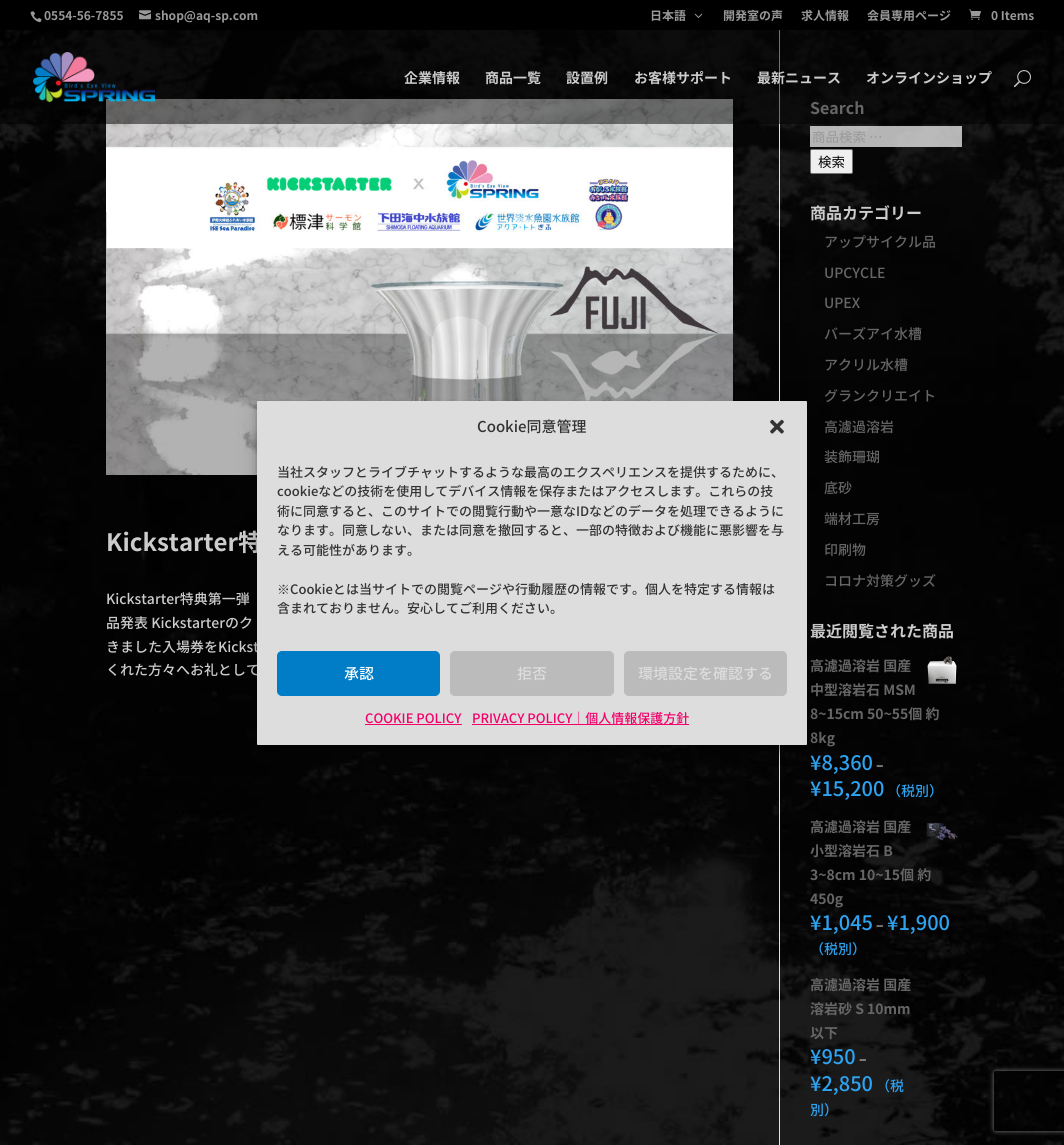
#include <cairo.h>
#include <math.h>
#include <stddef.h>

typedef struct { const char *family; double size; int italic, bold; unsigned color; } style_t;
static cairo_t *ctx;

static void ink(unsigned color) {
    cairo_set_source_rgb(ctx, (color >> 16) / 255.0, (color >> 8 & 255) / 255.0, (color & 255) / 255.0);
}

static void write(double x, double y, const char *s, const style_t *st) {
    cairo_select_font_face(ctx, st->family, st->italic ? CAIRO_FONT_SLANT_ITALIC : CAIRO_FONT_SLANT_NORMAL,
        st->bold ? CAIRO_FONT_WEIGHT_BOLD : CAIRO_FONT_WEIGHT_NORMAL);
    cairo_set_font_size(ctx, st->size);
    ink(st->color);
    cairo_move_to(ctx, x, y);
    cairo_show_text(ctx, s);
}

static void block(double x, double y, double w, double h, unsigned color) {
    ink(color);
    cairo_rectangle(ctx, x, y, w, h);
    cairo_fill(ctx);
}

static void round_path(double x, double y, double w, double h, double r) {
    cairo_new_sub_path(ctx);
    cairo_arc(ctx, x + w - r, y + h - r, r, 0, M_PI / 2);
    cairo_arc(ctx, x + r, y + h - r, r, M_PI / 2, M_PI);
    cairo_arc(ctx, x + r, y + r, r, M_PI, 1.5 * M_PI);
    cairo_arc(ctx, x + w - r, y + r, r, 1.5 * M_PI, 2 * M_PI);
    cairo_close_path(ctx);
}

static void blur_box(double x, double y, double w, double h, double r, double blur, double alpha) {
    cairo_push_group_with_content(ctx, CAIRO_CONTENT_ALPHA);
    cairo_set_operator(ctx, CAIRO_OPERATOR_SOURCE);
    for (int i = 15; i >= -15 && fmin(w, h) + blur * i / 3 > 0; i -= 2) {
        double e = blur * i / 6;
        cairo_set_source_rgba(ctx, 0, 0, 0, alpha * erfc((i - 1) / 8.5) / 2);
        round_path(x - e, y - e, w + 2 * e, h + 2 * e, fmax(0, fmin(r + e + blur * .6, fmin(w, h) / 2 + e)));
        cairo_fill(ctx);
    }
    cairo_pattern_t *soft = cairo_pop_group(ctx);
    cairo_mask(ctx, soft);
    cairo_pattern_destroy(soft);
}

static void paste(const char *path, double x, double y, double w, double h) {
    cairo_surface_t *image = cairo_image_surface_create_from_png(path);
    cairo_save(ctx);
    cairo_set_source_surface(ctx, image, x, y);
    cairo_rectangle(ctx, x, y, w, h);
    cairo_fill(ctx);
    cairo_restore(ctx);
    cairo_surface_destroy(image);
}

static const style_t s1 = {"Noto Sans JP", 12, 0, 1, 0x999999};
static const style_t s2 = {"Noto Sans JP", 16, 0, 1, 0xcccccc};
static const style_t s3 = {"Noto Sans JP", 14, 0, 1, 0xcccccc};
static const style_t s4 = {"Noto Sans JP", 24, 0, 1, 0xcccccc};
static const style_t s5 = {"Noto Sans JP Medium", 14, 0, 0, 0xcccccc};
static const style_t s6 = {"Noto Sans JP", 13.5, 0, 0, 0x999999};
static const style_t s7 = {"Noto Sans JP", 13.5, 0, 0, 0x000000};
static const style_t s8 = {"Noto Sans JP Medium", 14, 0, 0, 0x666666};
static const style_t s9 = {"Noto Sans JP", 14, 0, 1, 0x666666};
static const style_t s10 = {"Noto Sans JP Medium", 20, 0, 0, 0x2ea3f2};
static const style_t s11 = {"Noto Sans JP Medium", 14, 0, 0, 0x2ea3f2};
static const style_t s12 = {"Noto Sans JP Medium", 15, 0, 0, 0x333333};
static const style_t s13 = {"Noto Sans JP Medium", 13, 0, 0, 0x333333};
static const style_t s14 = {"WenQuanYi Zen Hei Medium", 13, 0, 0, 0x333333};
static const style_t s15 = {"Noto Sans JP Medium", 15, 0, 0, 0xffffff};
static const style_t s16 = {"Noto Sans JP Medium", 15, 0, 0, 0xdddddd};
static const style_t s17 = {"Noto Sans JP Medium", 13, 0, 0, 0xf4006a};

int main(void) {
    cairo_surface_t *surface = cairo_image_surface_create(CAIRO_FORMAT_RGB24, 1064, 1145);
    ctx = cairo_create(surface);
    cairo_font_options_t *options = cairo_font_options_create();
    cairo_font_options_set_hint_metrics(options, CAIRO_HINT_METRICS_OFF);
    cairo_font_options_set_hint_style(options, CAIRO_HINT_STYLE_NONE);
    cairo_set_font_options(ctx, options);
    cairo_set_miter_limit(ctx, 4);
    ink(0xffffff);
    cairo_paint(ctx);
    paste("pic1.png", 0, 30, 1064, 1115);
    block(0, 0, 1064, 30, 0x000000);
    paste("pic2.png", 30, 11, 12, 12);
    write(44, 20, "0554-56-7855", &s1);
    paste("pic3.png", 139, 10, 12, 10);
    write(155, 20, "shop@aq-sp.com", &s1);
    write(650, 20, "日本語", &s1);
    paste("pic4.png", 694, 13, 9, 5);
    write(723, 20, "開発室の声", &s1);
    write(801, 20, "求人情報", &s1);
    write(867, 20, "会員専用ページ", &s1);
    paste("pic5.png", 969, 9, 12, 11);
    write(991, 20, "0 Items", &s1);
    block(779, 30, 1, 1115, 0xe2e2e2);
    paste("pic8.png", 106, 99, 627, 376);
    write(810, 114, "Search", &s2);
    cairo_set_source_rgba(ctx, 0, 0, 0, 0.5);
    cairo_rectangle(ctx, 0, 30, 1064, 94);
    cairo_fill(ctx);
    paste("pic6.png", 33, 52, 122, 50);
    write(404, 83, "企業情報", &s3);
    write(485, 83, "商品一覧", &s3);
    write(566, 83, "設置例", &s3);
    write(634, 83, "お客様サポート", &s3);
    write(757, 83, "最新ニュース", &s3);
    write(866, 83, "オンラインショップ", &s3);
    paste("pic7.png", 1014, 70, 17, 18);
    write(106, 551, "Kickstarter特", &s4);
    write(106, 604, "Kickstarter特典第一弾", &s5);
    write(106, 628, "品発表 Kickstarterのク", &s5);
    write(106, 652, "きました入場券をKickst", &s5);
    write(106, 675, "くれた方々へお礼として", &s5);
    cairo_set_source_rgba(ctx, 1, 1, 1, 0.7);
    cairo_rectangle(ctx, 810, 126, 152, 21);
    cairo_fill(ctx);
    write(812, 142, "商品検索 …", &s6);
    ink(0xefefef);
    round_path(810.5, 149.5, 42, 24, 1.5);
    cairo_fill_preserve(ctx);
    ink(0x767676);
    cairo_set_line_width(ctx, 1);
    cairo_stroke(ctx);
    write(818, 167, "検索", &s7);
    write(810, 219, "商品カテゴリー", &s2);
    write(824, 247, "アップサイクル品", &s8);
    write(824, 278, "UPCYCLE", &s8);
    write(824, 308, "UPEX", &s8);
    write(824, 339, "バーズアイ水槽", &s8);
    write(824, 370, "アクリル水槽", &s8);
    write(824, 401, "グランクリエイト", &s8);
    write(824, 432, "高濾過溶岩", &s8);
    write(824, 462, "装飾珊瑚", &s8);
    write(824, 493, "底砂", &s8);
    write(824, 524, "端材工房", &s8);
    write(824, 555, "印刷物", &s8);
    write(824, 586, "コロナ対策グッズ", &s8);
    write(810, 637, "最近閲覧された商品", &s2);
    write(810, 671, "高濾過溶岩 国産", &s9);
    paste("pic9.png", 927, 656, 30, 28);
    write(810, 695, "中型溶岩石 MSM", &s9);
    write(810, 719, "8~15cm 50~55個 約", &s9);
    write(810, 743, "8kg", &s9);
    write(810, 770, "¥8,360", &s10);
    write(876, 770, "–", &s5);
    write(810, 796, "¥15,200", &s10);
    write(887, 796, "（税別）", &s11);
    write(810, 832, "高濾過溶岩 国産", &s9);
    paste("pic10.png", 926, 822, 32, 19);
    write(810, 856, "小型溶岩石 B", &s9);
    write(810, 880, "3~8cm 10~15個 約", &s9);
    write(810, 904, "450g", &s9);
    write(810, 930, "¥1,045", &s10);
    write(876, 930, "–", &s5);
    write(887, 930, "¥1,900", &s10);
    write(810, 954, "（税別）", &s11);
    write(810, 990, "高濾過溶岩 国産", &s9);
    write(810, 1014, "溶岩砂 S 10mm", &s9);
    write(810, 1038, "以下", &s9);
    write(810, 1064, "¥950", &s10);
    write(859, 1064, "–", &s5);
    write(810, 1091, "¥2,850", &s10);
    write(876, 1091, "（税", &s11);
    write(810, 1115, "別）", &s11);
    ink(0x000000);
    blur_box(257, 407, 550, 344, 1, 3, 0.23);
    blur_box(257, 411, 550, 344, 1, 10, 0.19);
    ink(0xdddddd);
    round_path(257, 401, 550, 344, 1);
    cairo_fill(ctx);
    write(477, 432, "Cookie同意管理", &s12);
    paste("pic11.png", 770, 419, 14, 15);
    write(277, 477, "当社スタッフとライブチャットするような最高のエクスペリエンスを提供するために、", &s13);
    write(277, 496, "cookieなどの技術を使用してデバイス情報を保存またはアクセスします。これらの技", &s13);
    write(277, 516, "術に同意すると、このサイトでの閲覧行動や一意なIDなどのデータを処理できるように", &s13);
    write(277, 535, "なります。同意しない、または同意を撤回すると、一部の特徴および機能に悪影響を与", &s13);
    write(277, 555, "える可能性があります。", &s13);
    write(277, 594, "※", &s14);
    write(290, 594, "Cookieとは当サイトでの閲覧ページや行動履歴の情報です。個人を特定する情報は", &s13);
    write(277, 613, "含まれておりません。安心してご利用ください。", &s13);
    ink(0x007dc6);
    round_path(277.5, 651.5, 162, 44, 4.5);
    cairo_fill_preserve(ctx);
    cairo_stroke(ctx);
    write(344, 679, "承認", &s15);
    ink(0xbbbbbb);
    round_path(450.5, 651.5, 163, 44, 4.5);
    cairo_fill_preserve(ctx);
    cairo_stroke(ctx);
    write(517, 679, "拒否", &s16);
    ink(0xbbbbbb);
    round_path(624.5, 651.5, 162, 44, 4.5);
    cairo_fill_preserve(ctx);
    cairo_stroke(ctx);
    write(638, 679, "環境設定を確認する", &s16);
    write(365, 723, "COOKIE POLICY", &s17);
    block(365, 724, 97, 1, 0xf4006a);
    block(472, 724, 217, 1, 0xf4006a);
    write(472, 723, "PRIVACY POLICY｜個人情報保護方針", &s17);
    cairo_save(ctx);
    cairo_set_fill_rule(ctx, CAIRO_FILL_RULE_EVEN_ODD);
    cairo_new_path(ctx);
    cairo_move_to(ctx, 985, 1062);
    cairo_line_to(ctx, 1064, 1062);
    cairo_line_to(ctx, 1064, 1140);
    cairo_line_to(ctx, 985, 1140);
    cairo_close_path(ctx);
    cairo_move_to(ctx, 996, 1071);
    cairo_line_to(ctx, 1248, 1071);
    cairo_curve_to(ctx, 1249, 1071, 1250, 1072, 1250, 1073);
    cairo_line_to(ctx, 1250, 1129);
    cairo_curve_to(ctx, 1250, 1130, 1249, 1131, 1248, 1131);
    cairo_line_to(ctx, 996, 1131);
    cairo_curve_to(ctx, 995, 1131, 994, 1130, 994, 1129);
    cairo_line_to(ctx, 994, 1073);
    cairo_curve_to(ctx, 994, 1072, 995, 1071, 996, 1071);
    cairo_close_path(ctx);
    cairo_clip(ctx);
    ink(0x808080);
    blur_box(994, 1071, 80, 60, 2, 2.5, 1);
    cairo_restore(ctx);
    cairo_surface_write_to_png(surface, "screenshot.png");
    cairo_font_options_destroy(options);
    cairo_destroy(ctx);
    cairo_surface_destroy(surface);
    return 0;
}
